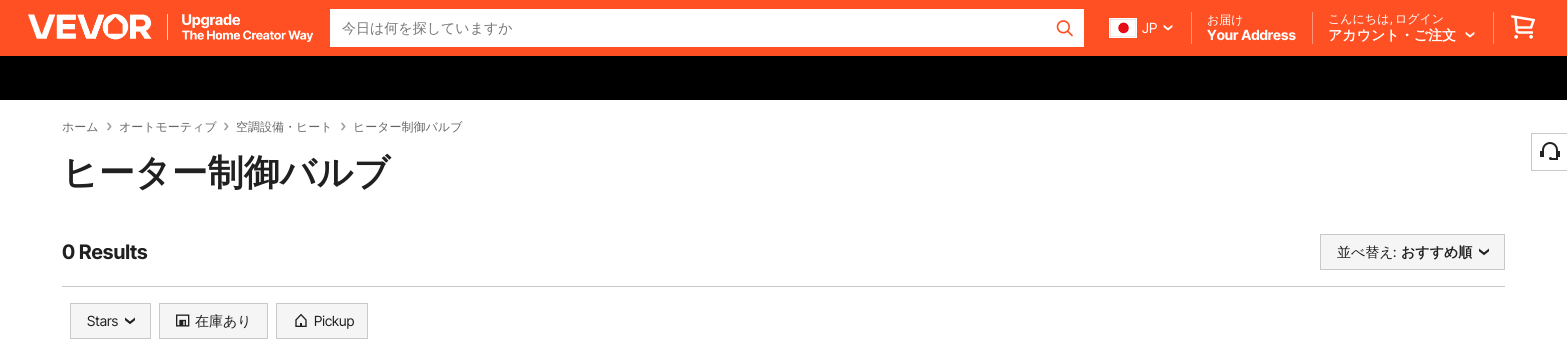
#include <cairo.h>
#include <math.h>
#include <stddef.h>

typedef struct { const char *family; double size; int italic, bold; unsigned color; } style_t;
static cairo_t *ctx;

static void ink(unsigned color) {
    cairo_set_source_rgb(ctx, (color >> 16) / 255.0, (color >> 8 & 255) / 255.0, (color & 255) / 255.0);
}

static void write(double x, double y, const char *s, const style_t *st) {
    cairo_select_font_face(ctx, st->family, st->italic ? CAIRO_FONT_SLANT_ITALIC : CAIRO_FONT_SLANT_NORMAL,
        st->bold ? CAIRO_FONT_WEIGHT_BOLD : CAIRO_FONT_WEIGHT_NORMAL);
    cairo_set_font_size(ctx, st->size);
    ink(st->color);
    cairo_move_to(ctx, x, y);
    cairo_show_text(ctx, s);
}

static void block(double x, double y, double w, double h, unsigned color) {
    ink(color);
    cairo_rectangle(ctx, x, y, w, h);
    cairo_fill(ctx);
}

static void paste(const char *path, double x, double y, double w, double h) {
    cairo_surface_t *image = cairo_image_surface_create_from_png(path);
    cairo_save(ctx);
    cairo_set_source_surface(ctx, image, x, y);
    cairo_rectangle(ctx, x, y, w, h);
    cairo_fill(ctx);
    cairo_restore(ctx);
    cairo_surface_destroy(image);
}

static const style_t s1 = {"WenQuanYi Zen Hei Medium", 14, 0, 0, 0x757575};
static const style_t s2 = {"Inter Tight", 14, 0, 0, 0xffffff};
static const style_t s3 = {"WenQuanYi Zen Hei Medium", 12, 0, 0, 0xffffff};
static const style_t s4 = {"Inter Tight", 14, 0, 1, 0xffffff};
static const style_t s5 = {"Inter Tight", 12, 0, 0, 0xffffff};
static const style_t s6 = {"WenQuanYi Zen Hei", 14, 0, 1, 0xffffff};
static const style_t s7 = {"WenQuanYi Zen Hei Medium", 12, 0, 0, 0x666666};
static const style_t s8 = {"WenQuanYi Zen Hei", 36, 0, 1, 0x202020};
static const style_t s9 = {"Inter Tight", 20, 0, 1, 0x202020};
static const style_t s10 = {"WenQuanYi Zen Hei Medium", 14, 0, 0, 0x202020};
static const style_t s11 = {"Inter Tight", 14, 0, 0, 0x202020};
static const style_t s12 = {"WenQuanYi Zen Hei", 14, 0, 1, 0x202020};

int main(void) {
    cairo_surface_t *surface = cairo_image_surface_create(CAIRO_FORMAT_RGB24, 1567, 340);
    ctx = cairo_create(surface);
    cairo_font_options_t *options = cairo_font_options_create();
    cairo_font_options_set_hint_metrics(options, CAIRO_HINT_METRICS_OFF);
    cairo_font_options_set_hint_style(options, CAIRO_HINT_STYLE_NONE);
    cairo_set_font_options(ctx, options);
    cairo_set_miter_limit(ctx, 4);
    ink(0xff5023);
    cairo_paint(ctx);
    paste("pic1.png", 28, 14, 286, 28);
    block(330, 9, 754, 38, 0xffffff);
    write(342, 33, "今日は何を探していますか", &s1);
    paste("pic2.png", 1056, 20, 17, 17);
    cairo_rectangle(ctx, 1109.5, 18.5, 27, 19);
    ink(0xffffff);
    cairo_set_line_width(ctx, 1);
    cairo_stroke(ctx);
    paste("pic3.png", 1110, 19, 26, 18);
    write(1142, 33, "JP", &s2);
    paste("pic4.png", 1163, 24, 10, 7);
    block(1191, 12, 1, 32, 0xff967b);
    write(1207, 24, "お届け", &s3);
    write(1207, 40, "Your Address", &s4);
    block(1312, 12, 1, 32, 0xff967b);
    write(1328, 23, "こんにちは", &s3);
    write(1390, 23, ",", &s5);
    write(1395, 23, "ログイン", &s3);
    write(1328, 40, "アカウント・ご注文", &s6);
    paste("pic4.png", 1465, 31, 10, 7);
    block(1493, 12, 1, 32, 0xff967b);
    paste("pic5.png", 1511, 15, 25, 24);
    block(0, 56, 1567, 44, 0x000000);
    block(0, 100, 1567, 240, 0xffffff);
    write(62, 131, "ホーム", &s7);
    paste("pic6.png", 107, 122, 5, 9);
    write(119, 131, "オートモーティブ", &s7);
    paste("pic6.png", 224, 122, 5, 9);
    write(236, 131, "空調設備・ヒート", &s7);
    paste("pic6.png", 341, 122, 5, 9);
    write(353, 131, "ヒーター制御バルブ", &s7);
    write(62, 185, "ヒーター制御バルブ", &s8);
    write(62, 259, "0 Results", &s9);
    ink(0xf5f5f5);
    cairo_rectangle(ctx, 1320.5, 234.5, 184, 35);
    cairo_fill_preserve(ctx);
    ink(0xc8c9cc);
    cairo_stroke(ctx);
    write(1337, 257, "並べ替え", &s10);
    write(1393, 257, ":", &s11);
    write(1401, 257, "おすすめ順", &s12);
    paste("pic7.png", 1479, 248, 10, 8);
    block(62, 286, 1443, 1, 0xc8c9cc);
    ink(0xf5f5f5);
    cairo_rectangle(ctx, 70.5, 303.5, 80, 35);
    cairo_fill_preserve(ctx);
    ink(0xc8c9cc);
    cairo_stroke(ctx);
    write(87, 326, "Stars", &s11);
    paste("pic7.png", 125, 317, 10, 8);
    ink(0xf5f5f5);
    cairo_rectangle(ctx, 159.5, 303.5, 108, 35);
    cairo_fill_preserve(ctx);
    ink(0xc8c9cc);
    cairo_stroke(ctx);
    paste("pic8.png", 176, 314, 14, 13);
    write(195, 326, "在庫あり", &s10);
    ink(0xf5f5f5);
    cairo_rectangle(ctx, 276.5, 303.5, 91, 35);
    cairo_fill_preserve(ctx);
    ink(0xc8c9cc);
    cairo_stroke(ctx);
    paste("pic9.png", 295, 313, 12, 14);
    write(314, 326, "Pickup", &s11);
    cairo_rectangle(ctx, 1531.5, 133.5, 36, 37);
    ink(0xc8c9cc);
    cairo_stroke(ctx);
    paste("pic10.png", 1540, 142, 20, 18);
    cairo_surface_write_to_png(surface, "screenshot.png");
    cairo_font_options_destroy(options);
    cairo_destroy(ctx);
    cairo_surface_destroy(surface);
    return 0;
}
